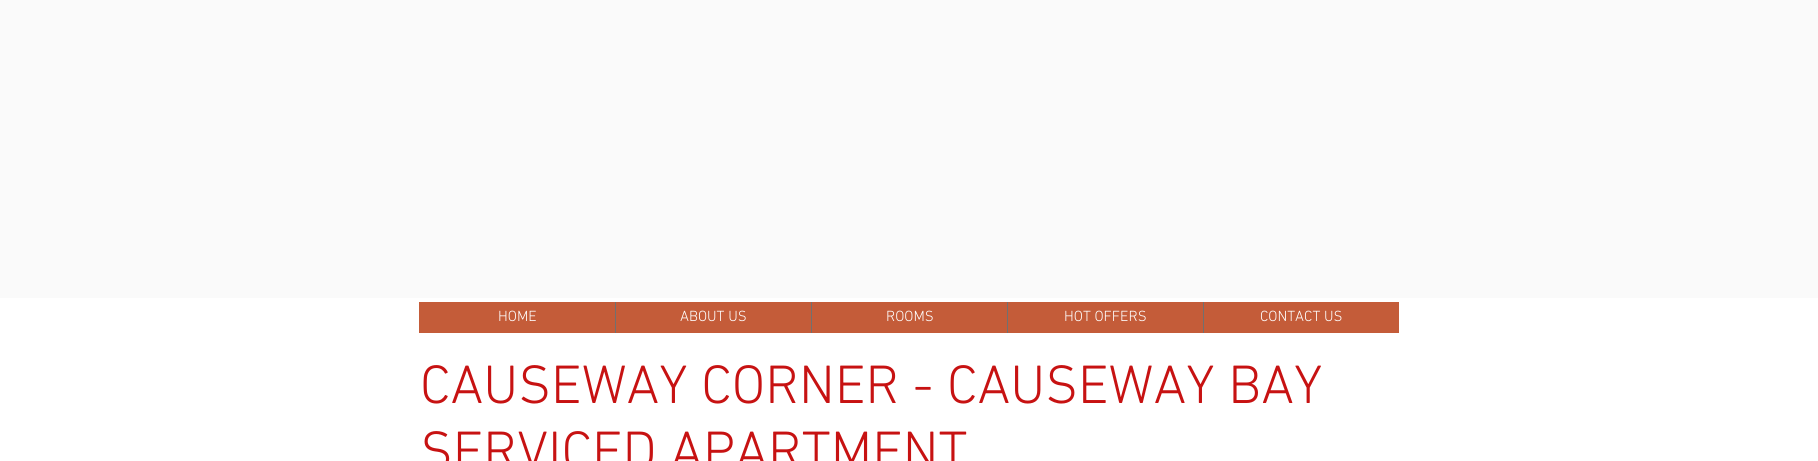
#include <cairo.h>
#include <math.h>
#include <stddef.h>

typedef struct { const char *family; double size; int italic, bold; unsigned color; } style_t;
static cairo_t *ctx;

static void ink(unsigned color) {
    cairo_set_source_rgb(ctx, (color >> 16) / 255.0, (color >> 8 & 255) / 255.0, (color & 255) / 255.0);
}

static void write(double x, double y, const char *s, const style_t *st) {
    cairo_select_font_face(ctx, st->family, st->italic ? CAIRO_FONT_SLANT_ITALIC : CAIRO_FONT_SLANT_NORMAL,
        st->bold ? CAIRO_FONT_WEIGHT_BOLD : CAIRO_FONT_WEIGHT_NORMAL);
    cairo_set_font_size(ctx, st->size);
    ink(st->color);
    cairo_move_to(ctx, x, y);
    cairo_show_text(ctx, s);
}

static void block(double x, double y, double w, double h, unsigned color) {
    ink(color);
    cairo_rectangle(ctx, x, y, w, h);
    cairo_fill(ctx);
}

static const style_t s1 = {"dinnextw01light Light", 15, 0, 0, 0xffffff};
static const style_t s2 = {"dinnextw01light Light", 55, 0, 0, 0xc71212};

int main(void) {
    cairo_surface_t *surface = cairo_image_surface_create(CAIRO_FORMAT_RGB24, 1818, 461);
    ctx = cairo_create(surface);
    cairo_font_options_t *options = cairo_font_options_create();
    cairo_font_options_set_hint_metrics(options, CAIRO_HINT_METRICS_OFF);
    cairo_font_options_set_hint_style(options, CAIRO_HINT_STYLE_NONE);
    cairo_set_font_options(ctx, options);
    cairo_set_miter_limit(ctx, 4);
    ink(0xffffff);
    cairo_paint(ctx);
    block(0, 0, 1818, 298, 0xfafafa);
    block(419, 302, 980, 31, 0xc45c39);
    write(498, 321, "HOME", &s1);
    block(615, 302, 1, 31, 0x707070);
    write(680, 321, "ABOUT US", &s1);
    block(811, 302, 1, 31, 0x707070);
    write(886, 321, "ROOMS", &s1);
    block(1007, 302, 1, 31, 0x707070);
    write(1064, 321, "HOT OFFERS", &s1);
    block(1203, 302, 1, 31, 0x707070);
    write(1260, 321, "CONTACT US", &s1);
    write(420, 403, "CAUSEWAY CORNER - CAUSEWAY BAY", &s2);
    write(420, 469, "SERVICED APARTMENT", &s2);
    cairo_surface_write_to_png(surface, "screenshot.png");
    cairo_font_options_destroy(options);
    cairo_destroy(ctx);
    cairo_surface_destroy(surface);
    return 0;
}
